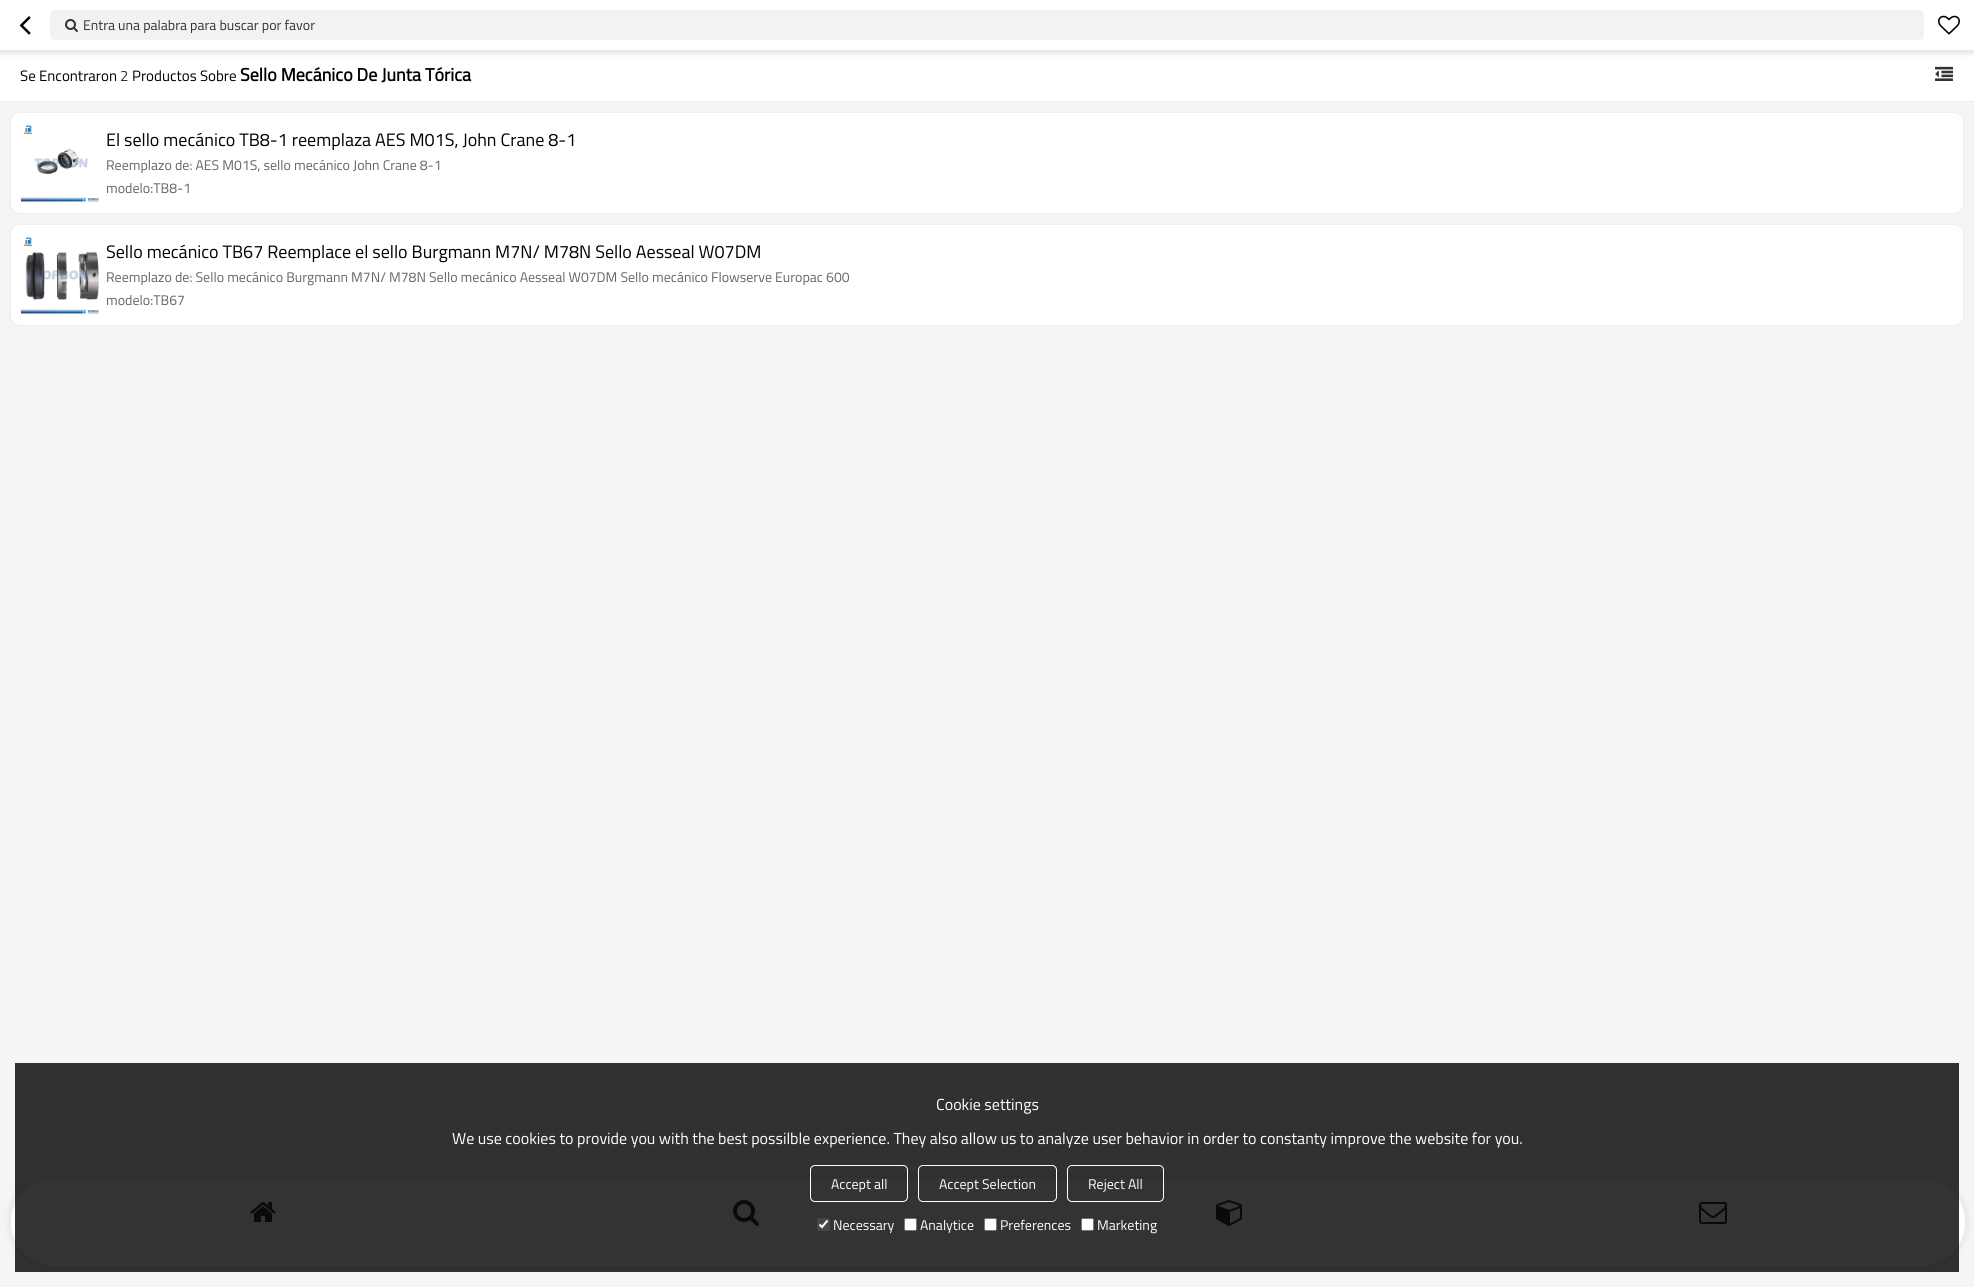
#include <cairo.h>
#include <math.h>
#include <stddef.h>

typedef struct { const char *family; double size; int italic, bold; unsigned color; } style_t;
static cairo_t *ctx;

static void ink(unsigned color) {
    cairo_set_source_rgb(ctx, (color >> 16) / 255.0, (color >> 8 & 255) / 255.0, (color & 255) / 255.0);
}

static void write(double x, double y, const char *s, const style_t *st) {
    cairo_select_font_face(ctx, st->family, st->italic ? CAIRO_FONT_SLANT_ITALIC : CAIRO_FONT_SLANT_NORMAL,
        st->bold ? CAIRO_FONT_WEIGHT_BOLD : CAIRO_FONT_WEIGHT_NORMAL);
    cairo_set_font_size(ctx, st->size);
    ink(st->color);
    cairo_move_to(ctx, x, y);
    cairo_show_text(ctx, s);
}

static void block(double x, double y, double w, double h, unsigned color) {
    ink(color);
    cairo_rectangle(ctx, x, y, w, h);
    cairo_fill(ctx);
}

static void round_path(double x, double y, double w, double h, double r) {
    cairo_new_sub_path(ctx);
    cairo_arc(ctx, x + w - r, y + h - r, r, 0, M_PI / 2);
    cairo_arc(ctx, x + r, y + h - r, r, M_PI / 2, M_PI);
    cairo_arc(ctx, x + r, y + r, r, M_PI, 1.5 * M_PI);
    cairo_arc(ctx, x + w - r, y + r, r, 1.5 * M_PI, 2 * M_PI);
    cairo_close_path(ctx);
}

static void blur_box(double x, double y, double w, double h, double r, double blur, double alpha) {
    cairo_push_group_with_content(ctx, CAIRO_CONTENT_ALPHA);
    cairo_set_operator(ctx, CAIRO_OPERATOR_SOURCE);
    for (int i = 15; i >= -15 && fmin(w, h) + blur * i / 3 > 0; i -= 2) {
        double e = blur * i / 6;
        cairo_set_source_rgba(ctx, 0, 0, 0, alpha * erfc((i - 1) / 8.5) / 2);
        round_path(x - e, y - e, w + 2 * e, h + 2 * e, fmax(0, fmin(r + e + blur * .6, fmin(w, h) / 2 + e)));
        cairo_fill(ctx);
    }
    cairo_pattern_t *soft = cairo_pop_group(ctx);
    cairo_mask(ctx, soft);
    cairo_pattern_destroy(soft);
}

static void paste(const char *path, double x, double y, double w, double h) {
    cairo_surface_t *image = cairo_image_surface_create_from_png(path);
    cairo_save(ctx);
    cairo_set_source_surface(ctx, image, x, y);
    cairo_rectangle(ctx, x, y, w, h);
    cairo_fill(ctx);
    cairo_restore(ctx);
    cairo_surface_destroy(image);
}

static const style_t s1 = {"Titillium Web", 14, 0, 0, 0x333333};
static const style_t s2 = {"Titillium Web", 15, 0, 0, 0x000000};
static const style_t s3 = {"Titillium Web", 15, 0, 0, 0x333333};
static const style_t s4 = {"Titillium Web", 18, 0, 1, 0x000000};
static const style_t s5 = {"Titillium Web", 18, 0, 0, 0x000000};
static const style_t s6 = {"Titillium Web", 14, 0, 0, 0x666666};
static const style_t s7 = {"Titillium Web", 16, 0, 0, 0xffffff};
static const style_t s8 = {"Titillium Web", 14, 0, 0, 0xffffff};

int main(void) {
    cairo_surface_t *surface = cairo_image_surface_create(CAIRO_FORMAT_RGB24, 1974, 1287);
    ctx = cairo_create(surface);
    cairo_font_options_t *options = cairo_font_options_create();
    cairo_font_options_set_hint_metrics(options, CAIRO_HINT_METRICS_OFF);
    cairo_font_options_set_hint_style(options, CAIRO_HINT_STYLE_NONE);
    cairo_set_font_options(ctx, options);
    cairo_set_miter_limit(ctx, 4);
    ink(0xf5f5f5);
    cairo_paint(ctx);
    block(0, 51, 1974, 50, 0xffffff);
    ink(0x000000);
    blur_box(0, 3, 1974, 51, 0, 2.5, 0.1);
    block(0, 0, 1974, 50, 0xffffff);
    block(0, 50, 1974, 1, 0xe5e5e5);
    paste("pic1.png", 19, 16, 12, 19);
    ink(0xf2f2f2);
    round_path(50, 10, 1874, 30, 5);
    cairo_fill(ctx);
    paste("pic2.png", 65, 19, 13, 13);
    write(83, 30, "Entra una palabra para buscar por favor", &s1);
    paste("pic3.png", 1938, 15, 22, 20);
    block(0, 101, 1974, 1, 0xeeeeee);
    write(20, 81, "Se Encontraron", &s2);
    write(120, 81, "2", &s3);
    write(132, 81, "Productos Sobre", &s2);
    write(240, 81, "Sello Mecánico De Junta Tórica", &s4);
    paste("pic4.png", 1935, 66, 18, 15);
    ink(0xffffff);
    round_path(10.5, 112.5, 1953, 101, 9.5);
    cairo_fill_preserve(ctx);
    ink(0xeeeeee);
    cairo_set_line_width(ctx, 1);
    cairo_stroke(ctx);
    paste("pic5.png", 21, 125, 78, 78);
    write(106, 146, "El sello mecánico TB8-1 reemplaza AES M01S, John Crane 8-1", &s5);
    write(106, 170, "Reemplazo de: AES M01S, sello mecánico John Crane 8-1", &s6);
    write(106, 193, "modelo:TB8-1", &s6);
    ink(0xffffff);
    round_path(10.5, 224.5, 1953, 101, 9.5);
    cairo_fill_preserve(ctx);
    ink(0xeeeeee);
    cairo_stroke(ctx);
    paste("pic6.png", 21, 237, 78, 78);
    write(106, 258, "Sello mecánico TB67 Reemplace el sello Burgmann M7N/ M78N Sello Aesseal W07DM", &s5);
    write(106, 282, "Reemplazo de: Sello mecánico Burgmann M7N/ M78N Sello mecánico Aesseal W07DM Sello mecánico Flowserve Europac 600", &s6);
    write(106, 305, "modelo:TB67", &s6);
    ink(0x000000);
    blur_box(10, 1177, 1956, 90, 45, 4, 0.1);
    ink(0xffffff);
    round_path(10.5, 1177.5, 1955, 89, 44.5);
    cairo_fill_preserve(ctx);
    ink(0xeeeeee);
    cairo_stroke(ctx);
    paste("pic7.png", 250, 1202, 26, 20);
    paste("pic8.png", 733, 1200, 26, 26);
    paste("pic9.png", 1216, 1200, 26, 26);
    paste("pic10.png", 1699, 1202, 28, 22);
    cairo_set_source_rgba(ctx, 0, 0, 0, 0.8);
    cairo_rectangle(ctx, 15, 1063, 1944, 209);
    cairo_fill(ctx);
    write(936, 1110, "Cookie settings", &s7);
    write(452, 1144, "We use cookies to provide you with the best possilble experience. They also allow us to analyze user behavior in order to constanty improve the website for you.", &s7);
    round_path(810.5, 1165.5, 97, 36, 4.5);
    cairo_stroke(ctx);
    write(831, 1189, "Accept all", &s8);
    round_path(918.5, 1165.5, 138, 36, 4.5);
    cairo_stroke(ctx);
    write(939, 1189, "Accept Selection", &s8);
    round_path(1067.5, 1165.5, 96, 36, 4.5);
    cairo_stroke(ctx);
    write(1088, 1189, "Reject All", &s8);
    ink(0x474747);
    round_path(817, 1218, 13, 13, 2);
    cairo_fill(ctx);
    cairo_new_path(ctx);
    cairo_move_to(ctx, 819.5, 1224.5);
    cairo_line_to(ctx, 822, 1227);
    cairo_line_to(ctx, 827.5, 1220.5);
    ink(0xffffff);
    cairo_set_line_width(ctx, 2.1);
    cairo_stroke(ctx);
    write(833, 1230, "Necessary", &s8);
    round_path(904.5, 1218.5, 12, 12, 1.5);
    cairo_fill_preserve(ctx);
    ink(0x767676);
    cairo_set_line_width(ctx, 1);
    cairo_stroke(ctx);
    write(920, 1230, "Analytice", &s8);
    round_path(984.5, 1218.5, 12, 12, 1.5);
    cairo_fill_preserve(ctx);
    ink(0x767676);
    cairo_stroke(ctx);
    write(1000, 1230, "Preferences", &s8);
    round_path(1081.5, 1218.5, 12, 12, 1.5);
    cairo_fill_preserve(ctx);
    ink(0x767676);
    cairo_stroke(ctx);
    write(1097, 1230, "Marketing", &s8);
    cairo_surface_write_to_png(surface, "screenshot.png");
    cairo_font_options_destroy(options);
    cairo_destroy(ctx);
    cairo_surface_destroy(surface);
    return 0;
}
